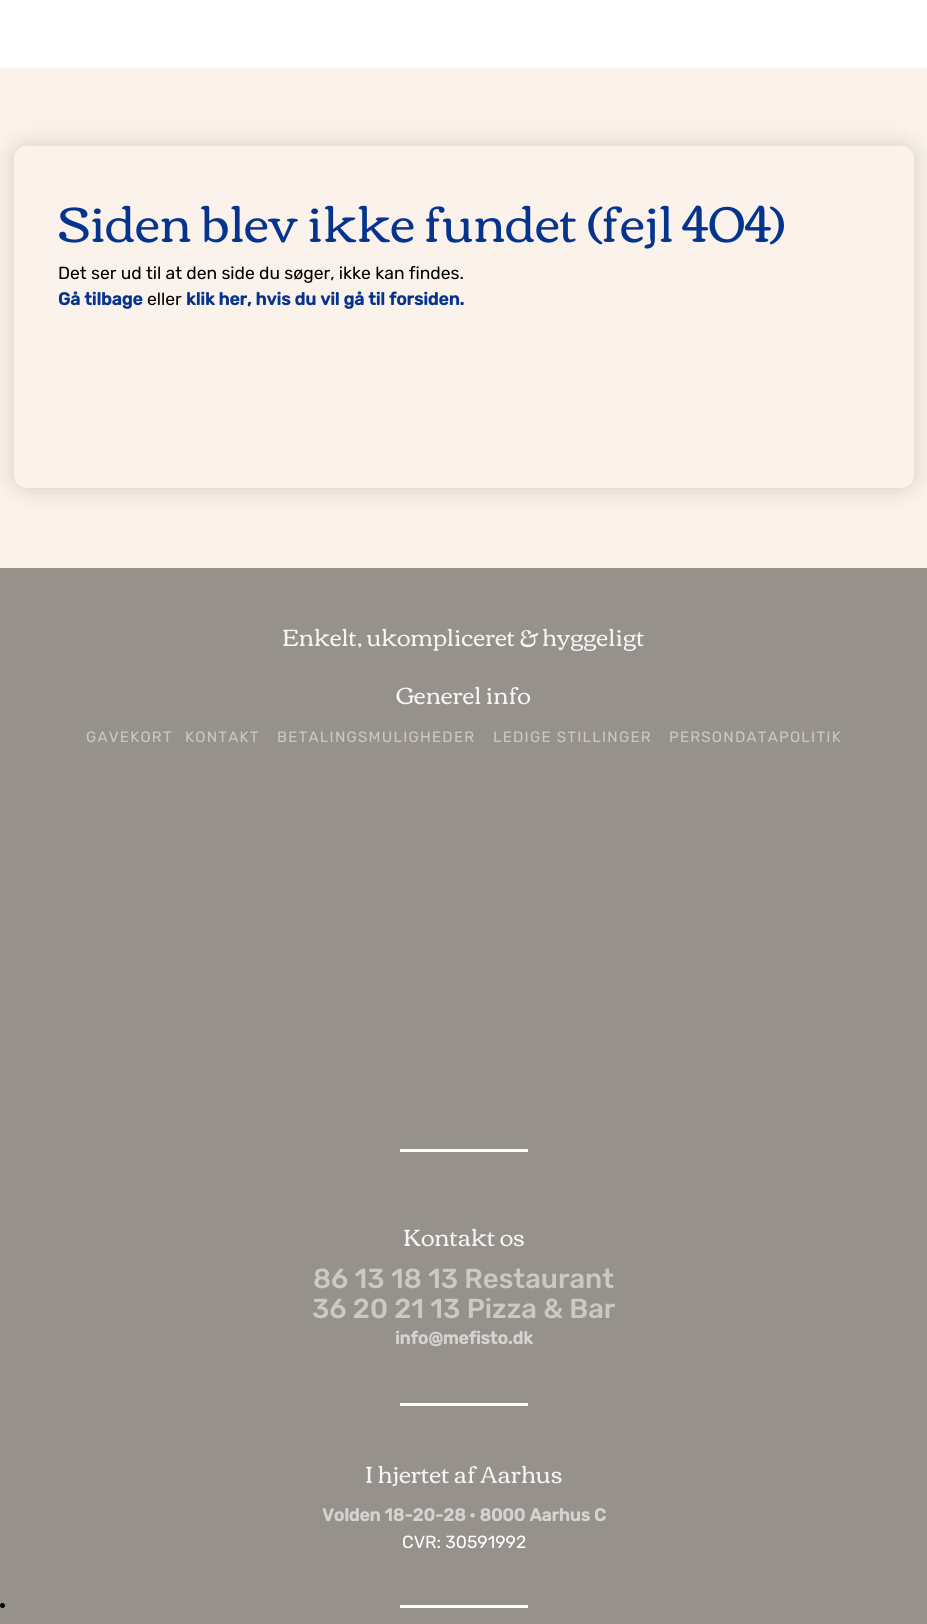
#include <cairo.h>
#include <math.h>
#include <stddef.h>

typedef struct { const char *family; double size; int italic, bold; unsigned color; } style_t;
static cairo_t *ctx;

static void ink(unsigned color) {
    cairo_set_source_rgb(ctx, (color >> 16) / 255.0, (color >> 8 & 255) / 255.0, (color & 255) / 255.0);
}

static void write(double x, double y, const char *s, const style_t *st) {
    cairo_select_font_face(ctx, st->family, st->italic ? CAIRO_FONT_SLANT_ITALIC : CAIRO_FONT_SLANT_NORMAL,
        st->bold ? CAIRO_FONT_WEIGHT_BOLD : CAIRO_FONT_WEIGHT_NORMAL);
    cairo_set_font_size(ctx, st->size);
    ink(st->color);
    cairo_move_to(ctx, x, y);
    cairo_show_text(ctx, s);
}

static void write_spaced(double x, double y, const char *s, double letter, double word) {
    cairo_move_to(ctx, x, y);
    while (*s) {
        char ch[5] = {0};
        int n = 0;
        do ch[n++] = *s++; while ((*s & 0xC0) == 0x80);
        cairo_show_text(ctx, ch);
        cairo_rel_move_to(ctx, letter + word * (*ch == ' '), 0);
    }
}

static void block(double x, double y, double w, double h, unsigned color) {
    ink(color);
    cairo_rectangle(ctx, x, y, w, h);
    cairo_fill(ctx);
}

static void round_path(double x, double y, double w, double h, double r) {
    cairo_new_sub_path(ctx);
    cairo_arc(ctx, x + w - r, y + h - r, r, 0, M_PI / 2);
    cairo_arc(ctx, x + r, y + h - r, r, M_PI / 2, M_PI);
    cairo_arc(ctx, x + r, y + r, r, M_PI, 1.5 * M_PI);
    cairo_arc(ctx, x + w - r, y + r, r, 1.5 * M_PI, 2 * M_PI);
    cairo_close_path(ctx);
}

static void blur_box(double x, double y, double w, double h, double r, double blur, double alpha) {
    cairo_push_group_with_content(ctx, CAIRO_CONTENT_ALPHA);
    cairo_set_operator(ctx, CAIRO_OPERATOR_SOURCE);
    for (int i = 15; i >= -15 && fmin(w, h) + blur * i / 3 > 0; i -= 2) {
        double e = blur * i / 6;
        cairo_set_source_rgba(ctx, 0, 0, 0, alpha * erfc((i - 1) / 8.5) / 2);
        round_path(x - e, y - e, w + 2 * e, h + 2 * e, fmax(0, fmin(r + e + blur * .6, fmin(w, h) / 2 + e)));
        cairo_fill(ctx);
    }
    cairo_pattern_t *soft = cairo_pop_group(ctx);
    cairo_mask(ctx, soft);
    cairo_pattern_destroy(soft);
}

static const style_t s1 = {"Corben", 50, 0, 0, 0x05348f};
static const style_t s2 = {"Rubik", 17.5, 0, 0, 0x000000};
static const style_t s3 = {"Rubik", 17.5, 0, 1, 0x05348f};
static const style_t s4 = {"Corben", 23.75, 0, 0, 0xf5f5f5};
static const style_t s5 = {"Rubik Medium", 27.5, 0, 0, 0xcbc8c6};
static const style_t s6 = {"Rubik", 17.5, 0, 1, 0xd5d3d1};
static const style_t s7 = {"Rubik", 17.5, 0, 0, 0xffffff};

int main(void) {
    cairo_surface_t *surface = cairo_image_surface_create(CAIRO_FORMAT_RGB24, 927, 1624);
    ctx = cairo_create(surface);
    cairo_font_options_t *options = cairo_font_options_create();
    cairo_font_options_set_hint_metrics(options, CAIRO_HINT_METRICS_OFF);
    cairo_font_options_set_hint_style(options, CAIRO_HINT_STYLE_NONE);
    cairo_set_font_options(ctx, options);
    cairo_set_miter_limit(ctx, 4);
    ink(0xffffff);
    cairo_paint(ctx);
    block(0, 68, 927, 500, 0xfbf2ea);
    cairo_save(ctx);
    cairo_set_fill_rule(ctx, CAIRO_FILL_RULE_EVEN_ODD);
    cairo_new_path(ctx);
    cairo_move_to(ctx, 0, 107);
    cairo_line_to(ctx, 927, 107);
    cairo_line_to(ctx, 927, 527);
    cairo_line_to(ctx, 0, 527);
    cairo_close_path(ctx);
    cairo_move_to(ctx, 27, 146);
    cairo_line_to(ctx, 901, 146);
    cairo_curve_to(ctx, 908, 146, 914, 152, 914, 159);
    cairo_line_to(ctx, 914, 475);
    cairo_curve_to(ctx, 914, 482, 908, 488, 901, 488);
    cairo_line_to(ctx, 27, 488);
    cairo_curve_to(ctx, 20, 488, 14, 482, 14, 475);
    cairo_line_to(ctx, 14, 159);
    cairo_curve_to(ctx, 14, 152, 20, 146, 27, 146);
    cairo_close_path(ctx);
    cairo_clip(ctx);
    ink(0x000000);
    blur_box(14, 146, 900, 342, 13, 12.5, 0.15);
    cairo_restore(ctx);
    cairo_set_source_rgba(ctx, 0.984, 0.949, 0.918, 0.8);
    round_path(14, 146, 900, 342, 13);
    cairo_fill(ctx);
    write(58, 242, "Siden blev ikke fundet (fejl 404)", &s1);
    write(58, 279, "Det ser ud til at den side du søger, ikke kan findes.", &s2);
    write(58, 305, "Gå tilbage", &s3);
    write(147, 305, "eller", &s2);
    write(186, 305, "klik her, hvis du vil gå til forsiden.", &s3);
    block(0, 568, 927, 1056, 0x97918c);
    write(282, 646, "Enkelt, ukompliceret & hyggeligt", &s4);
    write(396, 704, "Generel info", &s4);
    cairo_select_font_face(ctx, "Rubik", CAIRO_FONT_SLANT_NORMAL, CAIRO_FONT_WEIGHT_NORMAL);
    cairo_set_font_size(ctx, 15);
    ink(0xcbc8c6);
    write_spaced(86, 742, "GAVEKORT", 1.25, 0);
    write_spaced(185, 742, "KONTAKT", 1.25, 0);
    write_spaced(277, 742, "BETALINGSMULIGHEDER", 1.25, 0);
    write_spaced(493, 742, "LEDIGE STILLINGER", 1.25, 0);
    write_spaced(669, 742, "PERSONDATAPOLITIK", 1.25, 0);
    block(400, 1149, 128, 3, 0xffffff);
    write(403, 1246, "Kontakt os", &s4);
    write(313, 1288, "86 13 18 13 Restaurant", &s5);
    write(312, 1318, "36 20 21 13 Pizza & Bar", &s5);
    write(395, 1344, "info@mefisto.dk", &s6);
    block(400, 1403, 128, 3, 0xffffff);
    write(365, 1483, "I hjertet af Aarhus", &s4);
    write(322, 1521, "Volden 18-20-28 · 8000 Aarhus C", &s6);
    write(402, 1548, "CVR: 30591992", &s7);
    block(400, 1605, 128, 3, 0xffffff);
    ink(0x000000);
    cairo_new_path(ctx);
    cairo_arc(ctx, 2.5, 1605.5, 2.5, 0, 2 * M_PI);
    cairo_fill(ctx);
    cairo_surface_write_to_png(surface, "screenshot.png");
    cairo_font_options_destroy(options);
    cairo_destroy(ctx);
    cairo_surface_destroy(surface);
    return 0;
}
